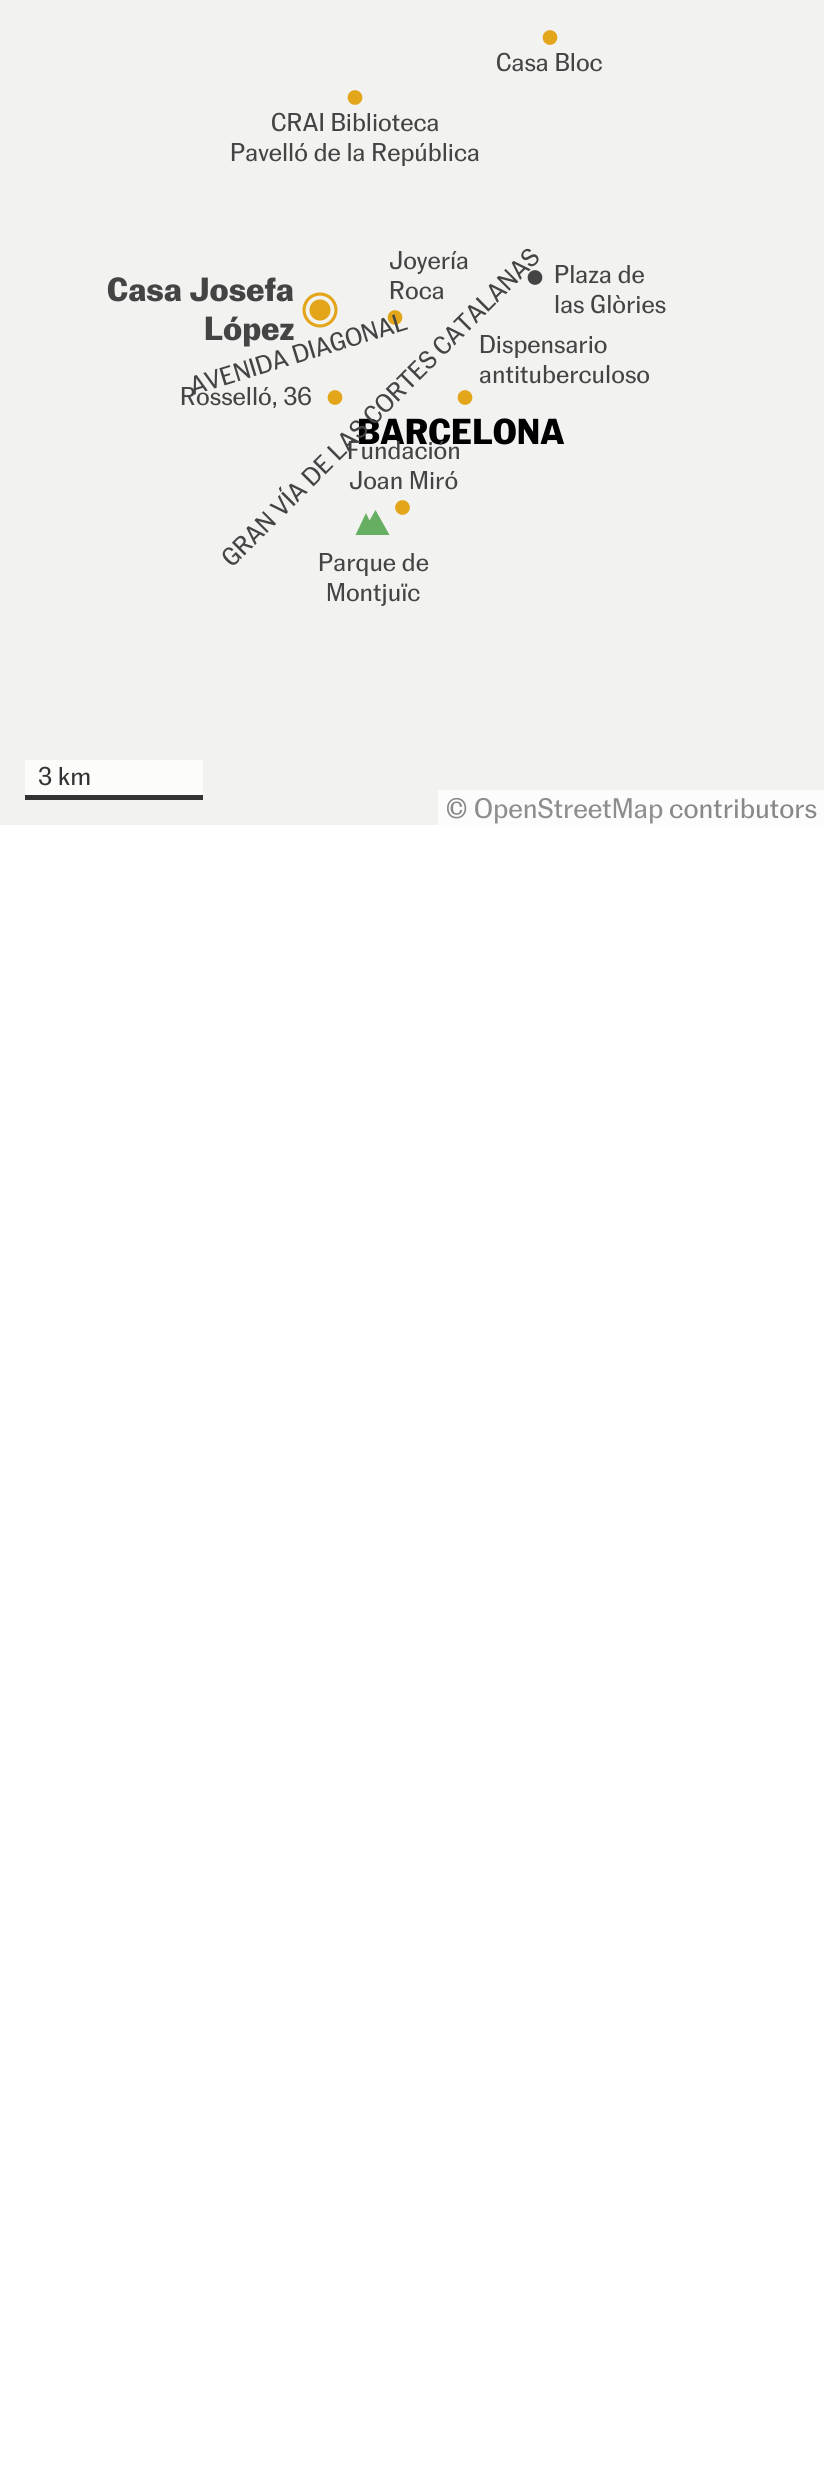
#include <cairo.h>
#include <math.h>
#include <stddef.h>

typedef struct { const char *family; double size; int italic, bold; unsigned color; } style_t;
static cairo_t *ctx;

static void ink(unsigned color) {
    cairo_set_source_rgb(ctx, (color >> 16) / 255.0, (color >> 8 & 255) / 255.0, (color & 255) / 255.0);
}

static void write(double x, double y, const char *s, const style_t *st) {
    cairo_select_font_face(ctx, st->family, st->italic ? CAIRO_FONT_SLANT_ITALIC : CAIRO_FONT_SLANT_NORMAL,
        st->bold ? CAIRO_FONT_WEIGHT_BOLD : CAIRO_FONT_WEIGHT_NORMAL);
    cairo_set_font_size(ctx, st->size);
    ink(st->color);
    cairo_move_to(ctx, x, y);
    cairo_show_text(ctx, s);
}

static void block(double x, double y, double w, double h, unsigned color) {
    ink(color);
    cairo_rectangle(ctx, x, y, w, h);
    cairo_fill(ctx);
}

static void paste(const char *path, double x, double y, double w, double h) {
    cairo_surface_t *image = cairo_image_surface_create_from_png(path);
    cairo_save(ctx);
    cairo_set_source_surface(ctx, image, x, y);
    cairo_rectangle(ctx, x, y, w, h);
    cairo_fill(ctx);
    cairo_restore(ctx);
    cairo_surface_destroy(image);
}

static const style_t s1 = {"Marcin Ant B", 25, 0, 0, 0x333333};
static const style_t s2 = {"Marcin Ant B", 25, 0, 0, 0x444444};
static const style_t s3 = {"Marcin Ant B", 32.5, 0, 1, 0x444444};
static const style_t s4 = {"Marcin Ant B", 35, 0, 1, 0x000000};
static const style_t s5 = {"Marcin Ant B", 27.5, 0, 0, 0x888888};
static const style_t s6 = {"Marcin Ant B", 27.5, 0, 0, 0x8d8e8d};

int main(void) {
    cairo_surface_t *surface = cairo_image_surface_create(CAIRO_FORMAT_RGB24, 824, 2482);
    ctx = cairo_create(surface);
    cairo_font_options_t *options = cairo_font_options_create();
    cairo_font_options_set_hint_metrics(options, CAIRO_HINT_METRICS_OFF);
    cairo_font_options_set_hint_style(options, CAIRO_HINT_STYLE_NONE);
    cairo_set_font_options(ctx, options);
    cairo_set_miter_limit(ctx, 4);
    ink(0xffffff);
    cairo_paint(ctx);
    block(0, 0, 824, 825, 0xf2f3f0);
    block(25, 760, 178, 35, 0xfcfcfb);
    block(25, 795, 178, 5, 0x333333);
    write(38, 785, "3 km", &s1);
    paste("pic1.png", 542, 30, 16, 15);
    write(496, 71, "Casa Bloc", &s2);
    paste("pic1.png", 347, 90, 16, 15);
    write(271, 131, "CRAI Biblioteca", &s2);
    write(230, 161, "Pavelló de la República", &s2);
    write(107, 301, "Casa Josefa", &s3);
    write(204, 340, "López", &s3);
    paste("pic2.png", 302, 292, 36, 36);
    write(389, 269, "Joyería", &s2);
    write(389, 299, "Roca", &s2);
    paste("pic1.png", 387, 310, 16, 15);
    write(479, 353, "Dispensario", &s2);
    write(479, 383, "antituberculoso", &s2);
    paste("pic1.png", 457, 390, 16, 15);
    write(180, 405, "Rosselló, 36", &s2);
    paste("pic1.png", 327, 390, 16, 15);
    write(357, 444, "BARCELONA", &s4);
    write(347, 459, "Fundación", &s2);
    write(349, 489, "Joan Miró", &s2);
    paste("pic4.png", 395, 500, 15, 15);
    ink(0x65ae62);
    cairo_new_path(ctx);
    cairo_move_to(ctx, 355.5, 535);
    cairo_line_to(ctx, 366, 513);
    cairo_line_to(ctx, 369.5, 520.5);
    cairo_line_to(ctx, 375.5, 510);
    cairo_line_to(ctx, 389.5, 535);
    cairo_close_path(ctx);
    cairo_fill(ctx);
    write(318, 571, "Parque de", &s2);
    cairo_save(ctx);
    cairo_translate(ctx, 232, 568);
    cairo_rotate(ctx, -45 * M_PI / 180);
    write(0, 0, "GRAN VÍA DE LAS CORTES CATALANAS", &s2);
    cairo_restore(ctx);
    paste("pic3.png", 527, 270, 16, 15);
    write(554, 283, "Plaza de", &s2);
    write(554, 313, "las Glòries", &s2);
    cairo_save(ctx);
    cairo_translate(ctx, 193, 395);
    cairo_rotate(ctx, -17 * M_PI / 180);
    write(0, 0, "AVENIDA DIAGONAL", &s2);
    cairo_restore(ctx);
    write(326, 601, "Montjuïc", &s2);
    block(438, 790, 386, 35, 0xfbfcfb);
    write(446, 818, "©", &s5);
    write(474, 818, "OpenStreetMap", &s6);
    write(669, 818, "contributors", &s5);
    cairo_surface_write_to_png(surface, "screenshot.png");
    cairo_font_options_destroy(options);
    cairo_destroy(ctx);
    cairo_surface_destroy(surface);
    return 0;
}
